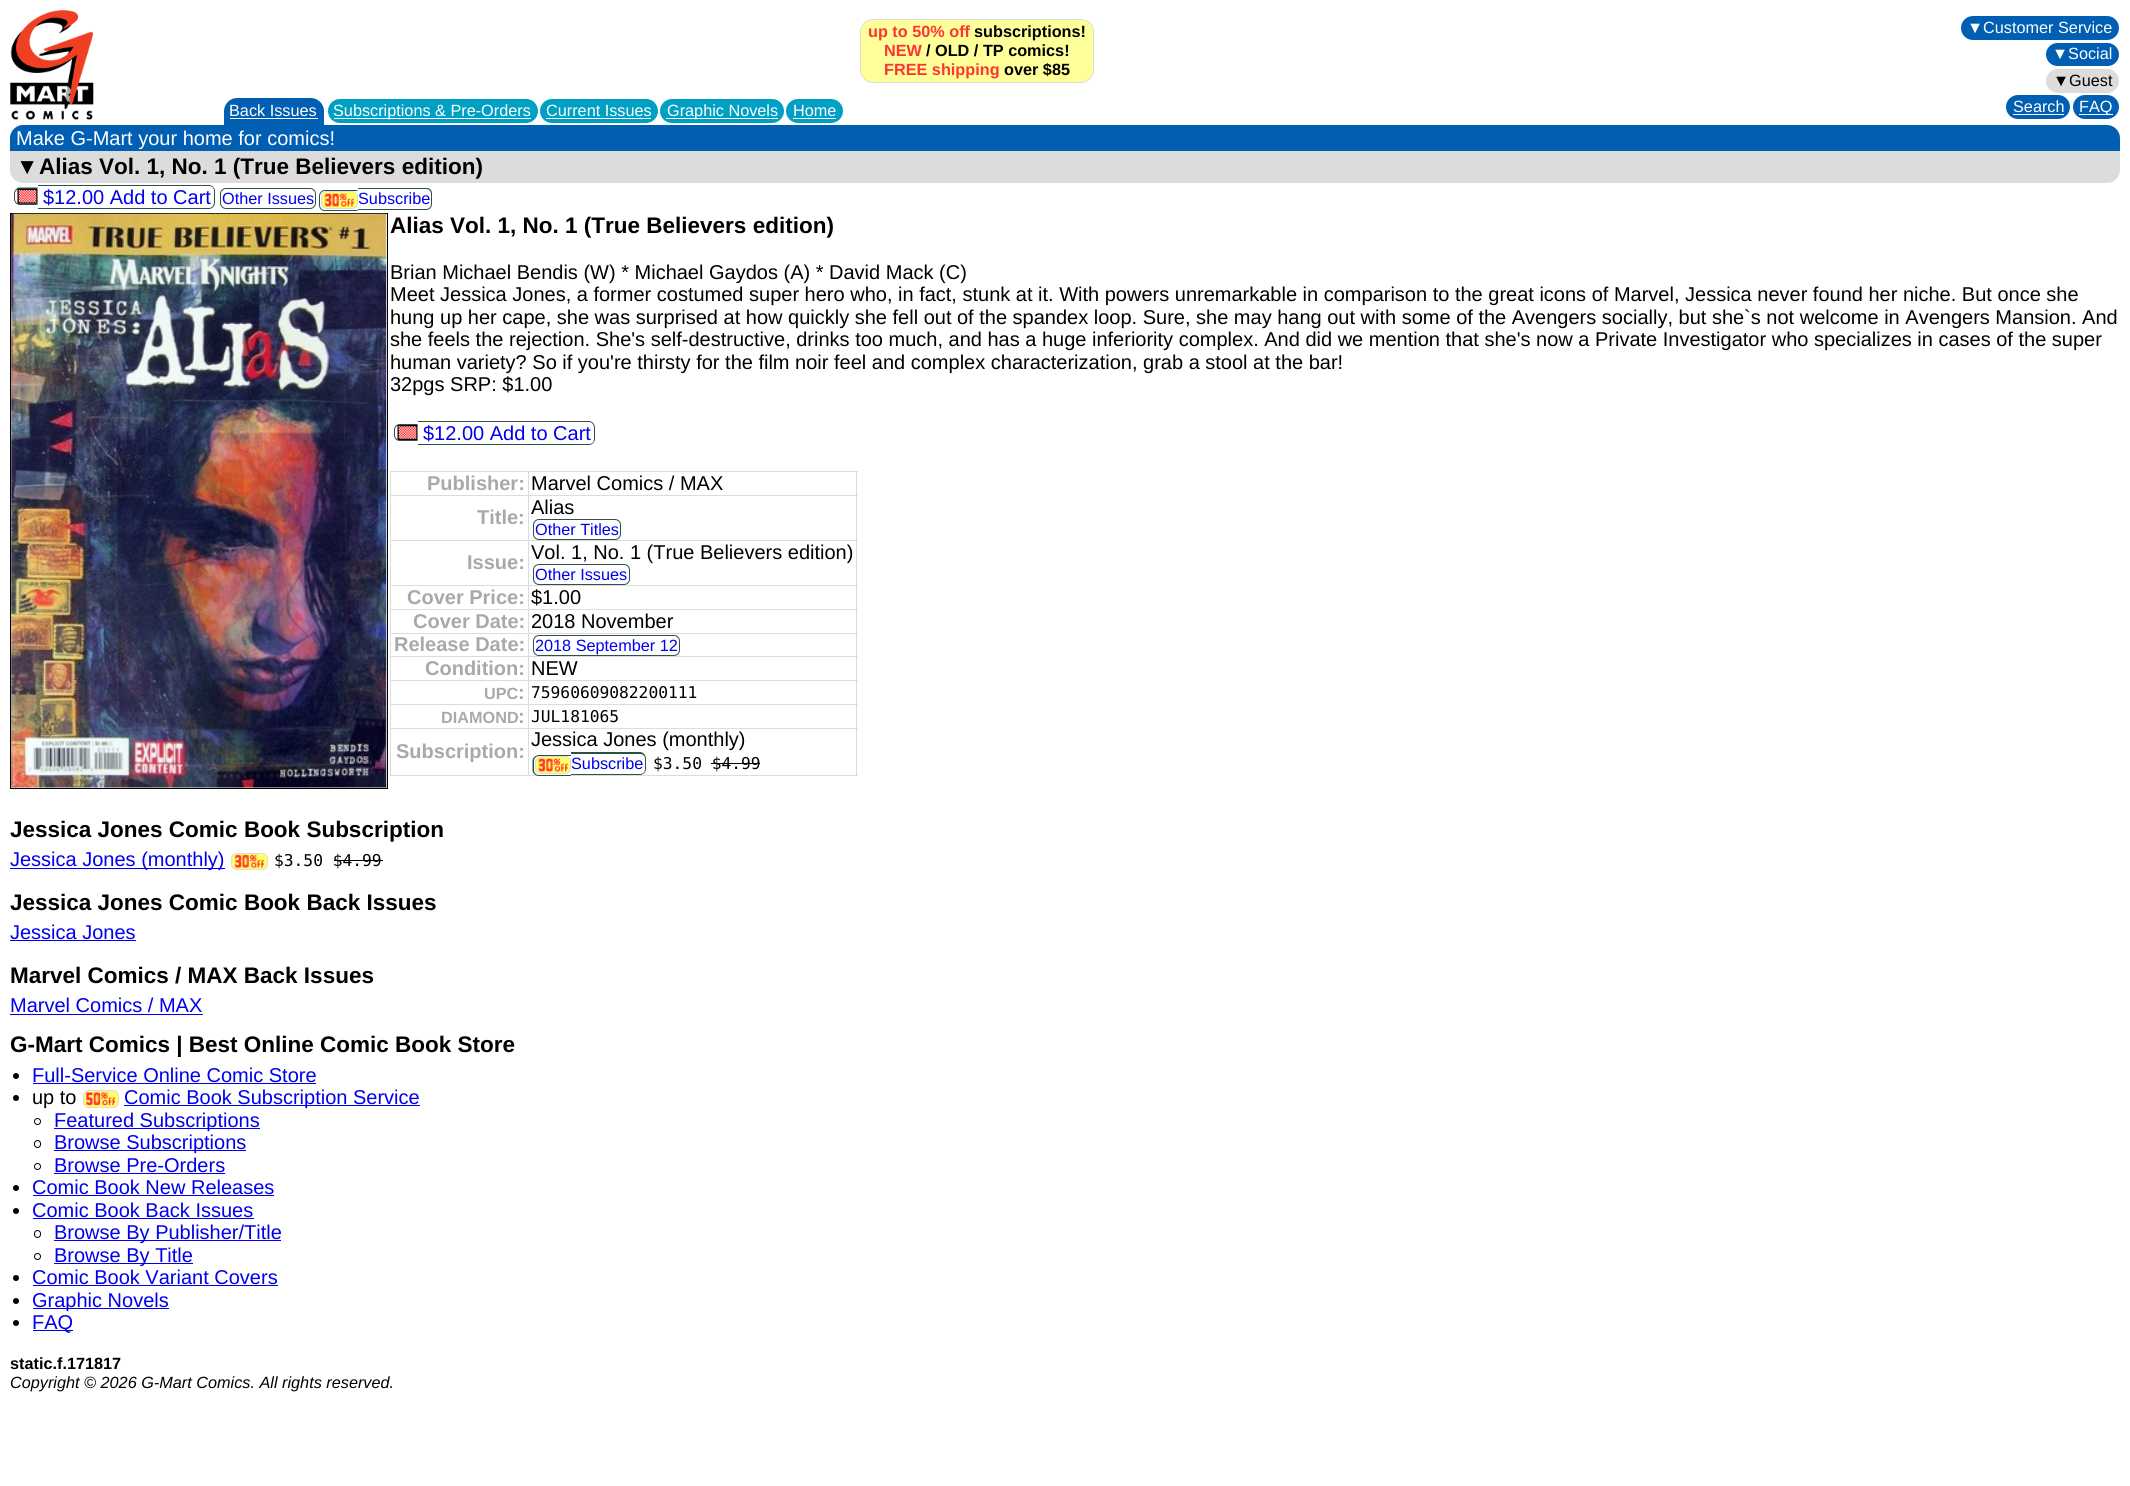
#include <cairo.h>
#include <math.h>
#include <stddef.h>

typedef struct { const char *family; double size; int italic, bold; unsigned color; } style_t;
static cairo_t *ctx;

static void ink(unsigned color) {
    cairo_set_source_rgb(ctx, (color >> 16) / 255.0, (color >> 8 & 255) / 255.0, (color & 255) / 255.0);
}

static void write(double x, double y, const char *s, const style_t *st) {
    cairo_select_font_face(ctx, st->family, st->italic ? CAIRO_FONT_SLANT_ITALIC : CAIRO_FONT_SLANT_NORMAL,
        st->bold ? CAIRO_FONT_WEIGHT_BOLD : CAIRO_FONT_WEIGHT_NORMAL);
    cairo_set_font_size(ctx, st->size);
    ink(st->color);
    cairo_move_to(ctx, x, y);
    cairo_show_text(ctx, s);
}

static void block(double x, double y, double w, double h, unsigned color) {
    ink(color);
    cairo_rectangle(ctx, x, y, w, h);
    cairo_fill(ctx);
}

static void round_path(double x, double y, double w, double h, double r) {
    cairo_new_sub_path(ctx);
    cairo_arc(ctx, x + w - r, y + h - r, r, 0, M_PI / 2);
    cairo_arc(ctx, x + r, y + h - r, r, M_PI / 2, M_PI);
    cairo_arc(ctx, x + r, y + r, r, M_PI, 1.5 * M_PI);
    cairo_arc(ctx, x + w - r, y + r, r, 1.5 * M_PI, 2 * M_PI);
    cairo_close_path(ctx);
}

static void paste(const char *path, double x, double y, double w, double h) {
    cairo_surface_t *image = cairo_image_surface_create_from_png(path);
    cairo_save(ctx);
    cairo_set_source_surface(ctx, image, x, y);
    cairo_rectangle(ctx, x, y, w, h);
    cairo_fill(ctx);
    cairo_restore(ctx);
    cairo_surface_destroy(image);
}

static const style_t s1 = {"Liberation Sans", 16.25, 0, 0, 0xffffff};
static const style_t s2 = {"Liberation Sans", 16.25, 0, 1, 0xff3333};
static const style_t s3 = {"Liberation Sans", 16.25, 0, 1, 0x000000};
static const style_t s4 = {"Liberation Sans", 16.25, 0, 0, 0x000000};
static const style_t s5 = {"Liberation Sans", 20, 0, 0, 0xffffff};
static const style_t s6 = {"Liberation Sans", 22.5, 0, 0, 0x000000};
static const style_t s7 = {"Liberation Sans", 22.5, 0, 1, 0x000000};
static const style_t s8 = {"Liberation Sans", 20, 0, 0, 0x0000ee};
static const style_t s9 = {"Liberation Sans", 16.25, 0, 0, 0x0000ee};
static const style_t s10 = {"Liberation Sans", 20, 0, 0, 0x000000};
static const style_t s11 = {"Liberation Sans", 20, 0, 1, 0xa9a9a9};
static const style_t s12 = {"Liberation Sans", 16.25, 0, 1, 0xa9a9a9};
static const style_t s13 = {"DejaVu Sans Mono", 16.25, 0, 0, 0x000000};
static const style_t s14 = {"Liberation Sans", 16.25, 1, 0, 0x000000};

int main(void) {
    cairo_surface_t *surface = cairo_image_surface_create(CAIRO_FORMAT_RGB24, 2130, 1486);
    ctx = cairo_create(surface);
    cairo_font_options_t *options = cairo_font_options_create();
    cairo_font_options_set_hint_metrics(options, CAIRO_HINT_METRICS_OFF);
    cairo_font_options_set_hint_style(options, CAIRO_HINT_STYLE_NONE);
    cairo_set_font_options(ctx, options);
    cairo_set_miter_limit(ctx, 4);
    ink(0xffffff);
    cairo_paint(ctx);
    ink(0x005fb2);
    cairo_new_path(ctx);
    cairo_move_to(ctx, 237, 98);
    cairo_line_to(ctx, 311, 98);
    cairo_curve_to(ctx, 318, 98, 324, 104, 324, 111);
    cairo_line_to(ctx, 324, 126);
    cairo_line_to(ctx, 224, 126);
    cairo_line_to(ctx, 224, 111);
    cairo_curve_to(ctx, 224, 104, 230, 98, 237, 98);
    cairo_close_path(ctx);
    cairo_fill(ctx);
    write(229, 116, "Back Issues", &s1);
    block(230, 118, 88, 1, 0xffffff);
    ink(0x00a0c4);
    round_path(328, 99, 210, 24, 12);
    cairo_fill(ctx);
    block(334, 118, 197, 1, 0xffffff);
    write(333, 116, "Subscriptions & Pre-Orders", &s1);
    ink(0x00a0c4);
    round_path(540, 99, 118, 24, 12);
    cairo_fill(ctx);
    write(546, 116, "Current Issues", &s1);
    block(546, 118, 105, 1, 0xffffff);
    ink(0x00a0c4);
    round_path(660, 99, 124, 24, 12);
    cairo_fill(ctx);
    block(666, 118, 112, 1, 0xffffff);
    write(667, 116, "Graphic Novels", &s1);
    ink(0x00a0c4);
    round_path(786, 99, 57, 24, 12);
    cairo_fill(ctx);
    write(793, 116, "Home", &s1);
    block(793, 118, 43, 1, 0xffffff);
    paste("pic1.png", 10, 10, 84, 110);
    ink(0xffff99);
    round_path(860.5, 19.5, 233, 63, 12.5);
    cairo_fill_preserve(ctx);
    ink(0xdcdcdc);
    cairo_set_line_width(ctx, 1);
    cairo_stroke(ctx);
    write(868, 37, "up to 50% off", &s2);
    write(974, 37, "subscriptions!", &s3);
    write(884, 56, "NEW", &s2);
    write(926, 56, "/ OLD / TP comics!", &s3);
    write(884, 75, "FREE shipping", &s2);
    write(1004, 75, "over $85", &s3);
    ink(0x005fb2);
    round_path(1961, 16, 158, 24, 12);
    cairo_fill(ctx);
    write(1967, 33, "▼Customer Service", &s1);
    ink(0x005fb2);
    round_path(2046, 43, 73, 23, 11.5);
    cairo_fill(ctx);
    write(2052, 59, "▼Social", &s1);
    ink(0xdcdcdc);
    round_path(2046, 69, 73, 24, 12);
    cairo_fill(ctx);
    write(2053, 86, "▼Guest", &s4);
    ink(0x005fb2);
    round_path(2006, 95, 64, 24, 12);
    cairo_fill(ctx);
    write(2013, 112, "Search", &s1);
    block(2013, 114, 51, 1, 0xffffff);
    ink(0x005fb2);
    round_path(2073, 95, 46, 24, 12);
    cairo_fill(ctx);
    block(2079, 114, 34, 1, 0xffffff);
    write(2079, 112, "FAQ", &s1);
    ink(0x005fb2);
    cairo_new_path(ctx);
    cairo_move_to(ctx, 23, 125);
    cairo_line_to(ctx, 2107, 125);
    cairo_curve_to(ctx, 2114, 125, 2120, 131, 2120, 138);
    cairo_line_to(ctx, 2120, 153);
    cairo_line_to(ctx, 10, 153);
    cairo_line_to(ctx, 10, 138);
    cairo_curve_to(ctx, 10, 131, 16, 125, 23, 125);
    cairo_close_path(ctx);
    cairo_fill(ctx);
    write(16, 145, "Make G-Mart your home for comics!", &s5);
    ink(0xdcdcdc);
    cairo_new_path(ctx);
    cairo_move_to(ctx, 10, 151);
    cairo_line_to(ctx, 2120, 151);
    cairo_line_to(ctx, 2120, 170);
    cairo_curve_to(ctx, 2120, 177, 2114, 183, 2107, 183);
    cairo_line_to(ctx, 23, 183);
    cairo_curve_to(ctx, 16, 183, 10, 177, 10, 170);
    cairo_close_path(ctx);
    cairo_fill(ctx);
    write(16, 174, "▼", &s6);
    write(39, 174, "Alias Vol. 1, No. 1 (True Believers edition)", &s7);
    ink(0x2f4f4f);
    cairo_set_fill_rule(ctx, CAIRO_FILL_RULE_EVEN_ODD);
    cairo_new_path(ctx);
    cairo_move_to(ctx, 20, 187.5);
    cairo_line_to(ctx, 37.5, 187.5);
    cairo_line_to(ctx, 37.5, 205);
    cairo_line_to(ctx, 20, 205);
    cairo_curve_to(ctx, 16.5, 205, 14, 202, 14, 199);
    cairo_line_to(ctx, 14, 194);
    cairo_curve_to(ctx, 14, 190.5, 16.5, 187.5, 20, 187.5);
    cairo_close_path(ctx);
    cairo_move_to(ctx, 20, 189);
    cairo_line_to(ctx, 37.5, 189);
    cairo_line_to(ctx, 37.5, 204);
    cairo_line_to(ctx, 20, 204);
    cairo_curve_to(ctx, 17, 204, 15, 201.5, 15, 199);
    cairo_line_to(ctx, 15, 194);
    cairo_curve_to(ctx, 15, 191, 17, 189, 20, 189);
    cairo_close_path(ctx);
    cairo_fill(ctx);
    paste("pic2.png", 17, 188, 21, 16);
    cairo_new_path(ctx);
    cairo_move_to(ctx, 104, 185);
    cairo_line_to(ctx, 209, 185);
    cairo_curve_to(ctx, 212, 185, 215, 188, 215, 191);
    cairo_line_to(ctx, 215, 202);
    cairo_curve_to(ctx, 215, 206, 212, 209, 209, 209);
    cairo_line_to(ctx, 104, 209);
    cairo_close_path(ctx);
    cairo_move_to(ctx, 104, 186);
    cairo_line_to(ctx, 209, 186);
    cairo_curve_to(ctx, 212, 186, 214, 188, 214, 191);
    cairo_line_to(ctx, 214, 202);
    cairo_curve_to(ctx, 214, 205, 212, 208, 209, 208);
    cairo_line_to(ctx, 104, 208);
    cairo_close_path(ctx);
    cairo_fill(ctx);
    write(43, 204, "$12.00 Add to Cart", &s8);
    block(38, 185, 66, 1, 0x2f4f4f);
    block(38, 208, 66, 1, 0x2f4f4f);
    round_path(220.5, 188.5, 95, 20, 5.5);
    cairo_stroke(ctx);
    write(222, 204, "Other Issues", &s9);
    ink(0x2f4f4f);
    cairo_new_path(ctx);
    cairo_move_to(ctx, 325, 190);
    cairo_line_to(ctx, 357.5, 190);
    cairo_line_to(ctx, 357.5, 211);
    cairo_line_to(ctx, 325, 211);
    cairo_curve_to(ctx, 321.5, 211, 319, 208.5, 319, 205);
    cairo_line_to(ctx, 319, 196);
    cairo_curve_to(ctx, 319, 193, 321.5, 190, 325, 190);
    cairo_close_path(ctx);
    cairo_move_to(ctx, 325, 191);
    cairo_line_to(ctx, 357.5, 191);
    cairo_line_to(ctx, 357.5, 210);
    cairo_line_to(ctx, 325, 210);
    cairo_curve_to(ctx, 322, 210, 320, 208, 320, 205);
    cairo_line_to(ctx, 320, 196);
    cairo_curve_to(ctx, 320, 193.5, 322, 191, 325, 191);
    cairo_close_path(ctx);
    cairo_fill(ctx);
    cairo_new_path(ctx);
    cairo_move_to(ctx, 358, 188);
    cairo_line_to(ctx, 426, 188);
    cairo_curve_to(ctx, 430, 188, 432, 190, 432, 194);
    cairo_line_to(ctx, 432, 204);
    cairo_curve_to(ctx, 432, 207, 430, 210, 426, 210);
    cairo_line_to(ctx, 358, 210);
    cairo_close_path(ctx);
    cairo_move_to(ctx, 358, 189);
    cairo_line_to(ctx, 426, 189);
    cairo_curve_to(ctx, 429, 189, 431, 191, 431, 194);
    cairo_line_to(ctx, 431, 204);
    cairo_curve_to(ctx, 431, 207, 429, 209, 426, 209);
    cairo_line_to(ctx, 358, 209);
    cairo_close_path(ctx);
    cairo_fill(ctx);
    ink(0xffff66);
    round_path(321.5, 191.5, 36, 17, 5.5);
    cairo_fill_preserve(ctx);
    ink(0xdcdcdc);
    cairo_stroke(ctx);
    paste("pic3.png", 324, 193, 30, 14);
    write(358, 204, "Subscribe", &s9);
    cairo_rectangle(ctx, 10.5, 213.5, 377, 575);
    ink(0x000000);
    cairo_stroke(ctx);
    paste("pic4.png", 11, 213, 376, 575);
    write(390, 233, "Alias Vol. 1, No. 1 (True Believers edition)", &s7);
    write(390, 279, "Brian Michael Bendis (W) * Michael Gaydos (A) * David Mack (C)", &s10);
    write(390, 301, "Meet Jessica Jones, a former costumed super hero who, in fact, stunk at it. With powers unremarkable in comparison to the great icons of Marvel, Jessica never found her niche. But once she", &s10);
    write(390, 324, "hung up her cape, she was surprised at how quickly she fell out of the spandex loop. Sure, she may hang out with some of the Avengers socially, but she`s not welcome in Avengers Mansion. And", &s10);
    write(390, 346, "she feels the rejection. She's self-destructive, drinks too much, and has a huge inferiority complex. And did we mention that she's now a Private Investigator who specializes in cases of the super", &s10);
    write(390, 369, "human variety? So if you're thirsty for the film noir feel and complex characterization, grab a stool at the bar!", &s10);
    write(390, 391, "32pgs SRP: $1.00", &s10);
    ink(0x2f4f4f);
    cairo_new_path(ctx);
    cairo_move_to(ctx, 400, 424);
    cairo_line_to(ctx, 417.5, 424);
    cairo_line_to(ctx, 417.5, 441);
    cairo_line_to(ctx, 400, 441);
    cairo_curve_to(ctx, 396.5, 441, 394, 438.5, 394, 435);
    cairo_line_to(ctx, 394, 430);
    cairo_curve_to(ctx, 394, 426.5, 396.5, 424, 400, 424);
    cairo_close_path(ctx);
    cairo_move_to(ctx, 400, 425);
    cairo_line_to(ctx, 417.5, 425);
    cairo_line_to(ctx, 417.5, 440);
    cairo_line_to(ctx, 400, 440);
    cairo_curve_to(ctx, 397, 440, 395, 438, 395, 435);
    cairo_line_to(ctx, 395, 430);
    cairo_curve_to(ctx, 395, 427, 397, 425, 400, 425);
    cairo_close_path(ctx);
    cairo_fill(ctx);
    paste("pic5.png", 397, 425, 21, 15);
    cairo_new_path(ctx);
    cairo_move_to(ctx, 484, 421);
    cairo_line_to(ctx, 589, 421);
    cairo_curve_to(ctx, 592, 421, 595, 424, 595, 428);
    cairo_line_to(ctx, 595, 439);
    cairo_curve_to(ctx, 595, 442, 592, 445, 589, 445);
    cairo_line_to(ctx, 484, 445);
    cairo_close_path(ctx);
    cairo_move_to(ctx, 484, 422);
    cairo_line_to(ctx, 589, 422);
    cairo_curve_to(ctx, 592, 422, 594, 425, 594, 428);
    cairo_line_to(ctx, 594, 439);
    cairo_curve_to(ctx, 594, 442, 592, 444, 589, 444);
    cairo_line_to(ctx, 484, 444);
    cairo_close_path(ctx);
    cairo_fill(ctx);
    write(423, 440, "$12.00 Add to Cart", &s8);
    block(418, 421, 66, 1, 0x2f4f4f);
    block(418, 444, 66, 1, 0x2f4f4f);
    block(528, 471, 330, 1, 0xdcdcdc);
    block(528, 495, 330, 1, 0xdcdcdc);
    block(528, 540, 330, 1, 0xdcdcdc);
    block(528, 585, 330, 1, 0xdcdcdc);
    block(528, 609, 330, 1, 0xdcdcdc);
    block(528, 633, 330, 1, 0xdcdcdc);
    block(528, 656, 330, 1, 0xdcdcdc);
    block(528, 680, 330, 1, 0xdcdcdc);
    block(528, 704, 330, 1, 0xdcdcdc);
    block(528, 728, 330, 1, 0xdcdcdc);
    block(856, 728, 1, 48, 0xdcdcdc);
    block(528, 775, 330, 1, 0xdcdcdc);
    block(528, 728, 1, 48, 0xdcdcdc);
    block(390, 728, 139, 1, 0xdcdcdc);
    block(528, 704, 1, 25, 0xdcdcdc);
    block(390, 704, 139, 1, 0xdcdcdc);
    block(528, 680, 1, 25, 0xdcdcdc);
    block(390, 680, 139, 1, 0xdcdcdc);
    block(528, 656, 1, 25, 0xdcdcdc);
    block(390, 656, 139, 1, 0xdcdcdc);
    block(528, 633, 1, 25, 0xdcdcdc);
    block(390, 633, 139, 1, 0xdcdcdc);
    block(528, 609, 1, 25, 0xdcdcdc);
    block(390, 609, 139, 1, 0xdcdcdc);
    block(528, 585, 1, 25, 0xdcdcdc);
    block(390, 585, 139, 1, 0xdcdcdc);
    block(528, 540, 1, 46, 0xdcdcdc);
    block(390, 540, 139, 1, 0xdcdcdc);
    block(528, 495, 1, 46, 0xdcdcdc);
    block(390, 495, 139, 1, 0xdcdcdc);
    block(528, 471, 1, 25, 0xdcdcdc);
    block(390, 471, 139, 1, 0xdcdcdc);
    block(390, 775, 139, 1, 0xdcdcdc);
    block(390, 728, 1, 48, 0xdcdcdc);
    block(390, 704, 1, 25, 0xdcdcdc);
    block(390, 680, 1, 25, 0xdcdcdc);
    block(390, 656, 1, 25, 0xdcdcdc);
    block(390, 633, 1, 25, 0xdcdcdc);
    block(390, 609, 1, 25, 0xdcdcdc);
    block(390, 585, 1, 25, 0xdcdcdc);
    block(390, 540, 1, 46, 0xdcdcdc);
    block(390, 495, 1, 46, 0xdcdcdc);
    block(390, 471, 1, 25, 0xdcdcdc);
    write(427, 490, "Publisher:", &s11);
    block(856, 704, 1, 25, 0xdcdcdc);
    block(856, 680, 1, 25, 0xdcdcdc);
    block(856, 656, 1, 25, 0xdcdcdc);
    block(856, 633, 1, 25, 0xdcdcdc);
    block(856, 609, 1, 25, 0xdcdcdc);
    block(856, 585, 1, 25, 0xdcdcdc);
    block(856, 540, 1, 46, 0xdcdcdc);
    block(856, 495, 1, 46, 0xdcdcdc);
    block(856, 471, 1, 25, 0xdcdcdc);
    write(531, 490, "Marvel Comics / MAX", &s10);
    write(477, 524, "Title:", &s11);
    write(531, 514, "Alias", &s10);
    round_path(533.5, 519.5, 87, 20, 5.5);
    ink(0x2f4f4f);
    cairo_stroke(ctx);
    write(535, 535, "Other Titles", &s9);
    write(467, 569, "Issue:", &s11);
    write(531, 559, "Vol. 1, No. 1 (True Believers edition)", &s10);
    round_path(533.5, 564.5, 96, 20, 5.5);
    ink(0x2f4f4f);
    cairo_stroke(ctx);
    write(535, 580, "Other Issues", &s9);
    write(407, 604, "Cover Price:", &s11);
    write(531, 604, "$1.00", &s10);
    write(413, 628, "Cover Date:", &s11);
    write(531, 628, "2018 November", &s10);
    write(394, 651, "Release Date:", &s11);
    round_path(533.5, 635.5, 146, 20, 5.5);
    ink(0x2f4f4f);
    cairo_stroke(ctx);
    write(535, 651, "2018 September 12", &s9);
    write(425, 675, "Condition:", &s11);
    write(531, 675, "NEW", &s10);
    write(484, 699, "UPC", &s12);
    write(518, 699, ":", &s11);
    write(531, 698, "75960609082200111", &s13);
    write(441, 723, "DIAMOND", &s12);
    write(518, 723, ":", &s11);
    write(531, 722, "JUL181065", &s13);
    write(396, 758, "Subscription:", &s11);
    write(531, 746, "Jessica Jones (monthly)", &s10);
    ink(0xffffff);
    cairo_new_path(ctx);
    cairo_move_to(ctx, 539, 755);
    cairo_line_to(ctx, 571, 755);
    cairo_line_to(ctx, 571, 776);
    cairo_line_to(ctx, 539, 776);
    cairo_curve_to(ctx, 535.5, 776, 533, 773.5, 533, 770);
    cairo_line_to(ctx, 533, 761);
    cairo_curve_to(ctx, 533, 757.5, 535.5, 755, 539, 755);
    cairo_close_path(ctx);
    cairo_fill(ctx);
    ink(0x2f4f4f);
    cairo_new_path(ctx);
    cairo_move_to(ctx, 539, 755);
    cairo_line_to(ctx, 571, 755);
    cairo_line_to(ctx, 571, 776);
    cairo_line_to(ctx, 539, 776);
    cairo_curve_to(ctx, 535.5, 776, 532.5, 773.5, 532.5, 770);
    cairo_line_to(ctx, 532.5, 761);
    cairo_curve_to(ctx, 532.5, 758, 535.5, 755, 539, 755);
    cairo_close_path(ctx);
    cairo_move_to(ctx, 539, 756);
    cairo_line_to(ctx, 571, 756);
    cairo_line_to(ctx, 571, 775);
    cairo_line_to(ctx, 539, 775);
    cairo_curve_to(ctx, 536, 775, 534, 773, 534, 770);
    cairo_line_to(ctx, 534, 761);
    cairo_curve_to(ctx, 534, 758.5, 536, 756, 539, 756);
    cairo_close_path(ctx);
    cairo_fill(ctx);
    cairo_new_path(ctx);
    cairo_move_to(ctx, 571, 752);
    cairo_line_to(ctx, 640, 752);
    cairo_curve_to(ctx, 643, 752, 646, 755, 646, 759);
    cairo_line_to(ctx, 646, 769);
    cairo_curve_to(ctx, 646, 772, 643, 775, 640, 775);
    cairo_line_to(ctx, 571, 775);
    cairo_close_path(ctx);
    cairo_move_to(ctx, 571, 754);
    cairo_line_to(ctx, 640, 754);
    cairo_curve_to(ctx, 643, 754, 645, 756, 645, 759);
    cairo_line_to(ctx, 645, 769);
    cairo_curve_to(ctx, 645, 772, 643, 774, 640, 774);
    cairo_line_to(ctx, 571, 774);
    cairo_close_path(ctx);
    cairo_fill(ctx);
    ink(0xffff66);
    round_path(535.5, 756.5, 35, 17, 5.5);
    cairo_fill_preserve(ctx);
    ink(0xdcdcdc);
    cairo_stroke(ctx);
    paste("pic6.png", 538, 758, 30, 14);
    write(571, 769, "Subscribe", &s9);
    write(653, 769, "$3.50 $4.99", &s13);
    block(711, 763, 49, 1, 0x000000);
    write(10, 837, "Jessica Jones Comic Book Subscription", &s7);
    block(10, 868, 215, 1, 0x0000ee);
    write(10, 866, "Jessica Jones (monthly)", &s8);
    ink(0xffff66);
    round_path(231.5, 853.5, 36, 16, 5.5);
    cairo_fill_preserve(ctx);
    ink(0xdcdcdc);
    cairo_stroke(ctx);
    paste("pic7.png", 234, 854, 30, 14);
    write(274, 866, "$3.50 $4.99", &s13);
    block(334, 860, 49, 1, 0x000000);
    write(10, 910, "Jessica Jones Comic Book Back Issues", &s7);
    write(10, 939, "Jessica Jones", &s8);
    block(10, 940, 126, 1, 0x0000ee);
    write(10, 983, "Marvel Comics / MAX Back Issues", &s7);
    write(10, 1012, "Marvel Comics / MAX", &s8);
    block(10, 1014, 193, 1, 0x0000ee);
    write(10, 1052, "G-Mart Comics | Best Online Comic Book Store", &s7);
    cairo_new_path(ctx);
    cairo_arc(ctx, 16, 1076, 3, 0, 2 * M_PI);
    cairo_fill(ctx);
    write(32, 1082, "Full-Service Online Comic Store", &s8);
    block(33, 1083, 283, 1, 0x0000ee);
    ink(0x000000);
    cairo_new_path(ctx);
    cairo_arc(ctx, 16, 1098, 3, 0, 2 * M_PI);
    cairo_fill(ctx);
    write(32, 1104, "up to", &s10);
    ink(0xffff66);
    round_path(83.5, 1090.5, 35, 17, 5.5);
    cairo_fill_preserve(ctx);
    ink(0xdcdcdc);
    cairo_stroke(ctx);
    paste("pic8.png", 86, 1092, 30, 14);
    block(124, 1105, 296, 1, 0x0000ee);
    write(124, 1104, "Comic Book Subscription Service", &s8);
    cairo_new_path(ctx);
    cairo_arc(ctx, 37.5, 1121.5, 3, 0, 2 * M_PI);
    ink(0x000000);
    cairo_stroke(ctx);
    block(54, 1128, 206, 1, 0x0000ee);
    write(54, 1127, "Featured Subscriptions", &s8);
    round_path(34.5, 1140.5, 6, 7, 3);
    ink(0x000000);
    cairo_stroke(ctx);
    block(54, 1150, 192, 1, 0x0000ee);
    write(54, 1149, "Browse Subscriptions", &s8);
    cairo_new_path(ctx);
    cairo_arc(ctx, 37.5, 1166.5, 3, 0, 2 * M_PI);
    ink(0x000000);
    cairo_stroke(ctx);
    write(54, 1172, "Browse Pre-Orders", &s8);
    block(54, 1173, 171, 1, 0x0000ee);
    ink(0x000000);
    cairo_new_path(ctx);
    cairo_arc(ctx, 16, 1188, 3, 0, 2 * M_PI);
    cairo_fill(ctx);
    write(32, 1194, "Comic Book New Releases", &s8);
    block(33, 1195, 241, 1, 0x0000ee);
    ink(0x000000);
    cairo_new_path(ctx);
    cairo_arc(ctx, 16, 1211, 3, 0, 2 * M_PI);
    cairo_fill(ctx);
    write(32, 1217, "Comic Book Back Issues", &s8);
    block(33, 1218, 221, 1, 0x0000ee);
    round_path(34.5, 1230.5, 6, 7, 3);
    ink(0x000000);
    cairo_stroke(ctx);
    block(54, 1240, 227, 1, 0x0000ee);
    write(54, 1239, "Browse By Publisher/Title", &s8);
    cairo_new_path(ctx);
    cairo_arc(ctx, 37.5, 1256.5, 3, 0, 2 * M_PI);
    ink(0x000000);
    cairo_stroke(ctx);
    block(54, 1263, 139, 1, 0x0000ee);
    write(54, 1262, "Browse By Title", &s8);
    ink(0x000000);
    cairo_new_path(ctx);
    cairo_arc(ctx, 16, 1278, 3, 0, 2 * M_PI);
    cairo_fill(ctx);
    write(32, 1284, "Comic Book Variant Covers", &s8);
    block(33, 1285, 245, 1, 0x0000ee);
    ink(0x000000);
    cairo_new_path(ctx);
    cairo_arc(ctx, 16, 1301, 3, 0, 2 * M_PI);
    cairo_fill(ctx);
    block(33, 1308, 136, 1, 0x0000ee);
    write(32, 1307, "Graphic Novels", &s8);
    ink(0x000000);
    cairo_new_path(ctx);
    cairo_arc(ctx, 16, 1323, 3, 0, 2 * M_PI);
    cairo_fill(ctx);
    block(33, 1330, 40, 1, 0x0000ee);
    write(32, 1329, "FAQ", &s8);
    write(10, 1369, "static.f.171817", &s3);
    write(10, 1388, "Copyright © 2026 G-Mart Comics. All rights reserved.", &s14);
    cairo_surface_write_to_png(surface, "screenshot.png");
    cairo_font_options_destroy(options);
    cairo_destroy(ctx);
    cairo_surface_destroy(surface);
    return 0;
}
